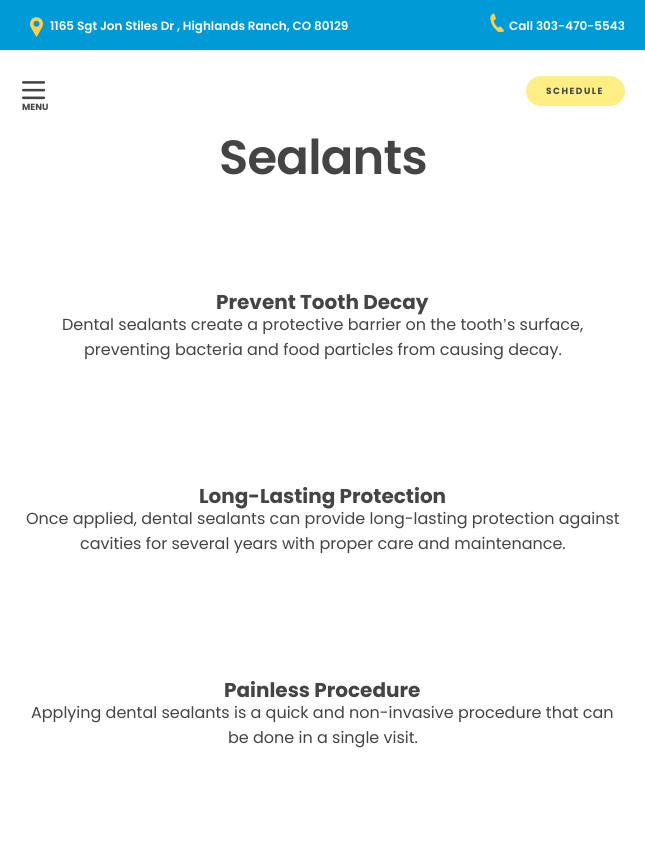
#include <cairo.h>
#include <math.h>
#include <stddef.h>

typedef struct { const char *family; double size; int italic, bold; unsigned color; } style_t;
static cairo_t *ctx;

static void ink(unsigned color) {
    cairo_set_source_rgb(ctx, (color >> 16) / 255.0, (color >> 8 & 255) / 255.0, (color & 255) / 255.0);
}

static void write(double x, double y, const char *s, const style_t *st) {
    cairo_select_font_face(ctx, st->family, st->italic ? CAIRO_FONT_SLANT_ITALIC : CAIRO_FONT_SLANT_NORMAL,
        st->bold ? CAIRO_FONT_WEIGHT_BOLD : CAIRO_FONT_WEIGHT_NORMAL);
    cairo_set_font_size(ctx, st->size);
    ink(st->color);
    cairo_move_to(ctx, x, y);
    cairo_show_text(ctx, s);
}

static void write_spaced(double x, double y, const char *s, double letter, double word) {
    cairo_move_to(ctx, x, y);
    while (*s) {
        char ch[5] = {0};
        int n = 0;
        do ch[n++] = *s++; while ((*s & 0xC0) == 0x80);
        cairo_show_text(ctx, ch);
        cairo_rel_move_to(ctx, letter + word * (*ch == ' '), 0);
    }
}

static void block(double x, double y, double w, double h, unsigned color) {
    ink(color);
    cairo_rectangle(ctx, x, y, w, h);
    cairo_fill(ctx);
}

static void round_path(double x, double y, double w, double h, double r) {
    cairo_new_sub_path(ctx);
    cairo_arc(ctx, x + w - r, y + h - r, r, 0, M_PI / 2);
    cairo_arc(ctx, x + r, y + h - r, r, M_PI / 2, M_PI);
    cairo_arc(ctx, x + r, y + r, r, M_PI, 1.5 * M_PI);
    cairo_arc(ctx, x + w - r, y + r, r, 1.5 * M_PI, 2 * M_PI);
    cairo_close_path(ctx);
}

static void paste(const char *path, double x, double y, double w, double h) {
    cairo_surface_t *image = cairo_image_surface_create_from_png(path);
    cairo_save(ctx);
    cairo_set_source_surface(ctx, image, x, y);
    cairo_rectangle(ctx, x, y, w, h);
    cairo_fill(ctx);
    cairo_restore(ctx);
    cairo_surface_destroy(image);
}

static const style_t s1 = {"Poppins SemiBold", 12, 0, 0, 0xffffff};
static const style_t s2 = {"Poppins", 9, 0, 1, 0x444444};
static const style_t s3 = {"Poppins", 20, 0, 1, 0x444444};
static const style_t s4 = {"Poppins", 16, 0, 0, 0x444444};
static const style_t s5 = {"Liberation Sans", 16, 0, 0, 0x444444};

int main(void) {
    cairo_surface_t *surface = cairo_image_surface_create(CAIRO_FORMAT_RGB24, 645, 843);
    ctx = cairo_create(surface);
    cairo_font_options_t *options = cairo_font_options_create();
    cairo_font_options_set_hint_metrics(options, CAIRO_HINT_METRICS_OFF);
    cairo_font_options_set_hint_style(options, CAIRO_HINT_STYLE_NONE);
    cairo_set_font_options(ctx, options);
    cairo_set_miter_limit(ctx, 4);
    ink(0xffffff);
    cairo_paint(ctx);
    block(0, 0, 645, 50, 0x009bd7);
    paste("pic1.png", 30, 17, 13, 20);
    write(50, 30, "1165 Sgt Jon Stiles Dr , Highlands Ranch, CO 80129", &s1);
    paste("pic2.png", 490, 13, 15, 19);
    write(509, 30, "Call 303-470-5543", &s1);
    ink(0xffee84);
    round_path(526, 76, 99, 30, 15);
    cairo_fill(ctx);
    cairo_select_font_face(ctx, "Poppins", CAIRO_FONT_SLANT_NORMAL, CAIRO_FONT_WEIGHT_BOLD);
    cairo_set_font_size(ctx, 9);
    ink(0x444444);
    write_spaced(546, 94, "SCHEDULE", 1.5, 0);
    paste("pic3.png", 22, 81, 24, 19);
    write(22, 110, "MENU", &s2);
    cairo_select_font_face(ctx, "Poppins SemiBold", CAIRO_FONT_SLANT_NORMAL, CAIRO_FONT_WEIGHT_NORMAL);
    cairo_set_font_size(ctx, 48);
    write_spaced(219, 174, "Sealants", -0.75, 0);
    write(216, 309, "Prevent Tooth Decay", &s3);
    write(62, 330, "Dental sealants create a protective barrier on the tooth", &s4);
    write(503, 330, "’", &s5);
    write(507, 330, "s surface,", &s4);
    write(84, 355, "preventing bacteria and food particles from causing decay.", &s4);
    write(199, 503, "Long-Lasting Protection", &s3);
    write(26, 524, "Once applied, dental sealants can provide long-lasting protection against", &s4);
    write(80, 549, "cavities for several years with proper care and maintenance.", &s4);
    write(224, 697, "Painless Procedure", &s3);
    write(31, 718, "Applying dental sealants is a quick and non-invasive procedure that can", &s4);
    write(228, 743, "be done in a single visit.", &s4);
    cairo_surface_write_to_png(surface, "screenshot.png");
    cairo_font_options_destroy(options);
    cairo_destroy(ctx);
    cairo_surface_destroy(surface);
    return 0;
}
